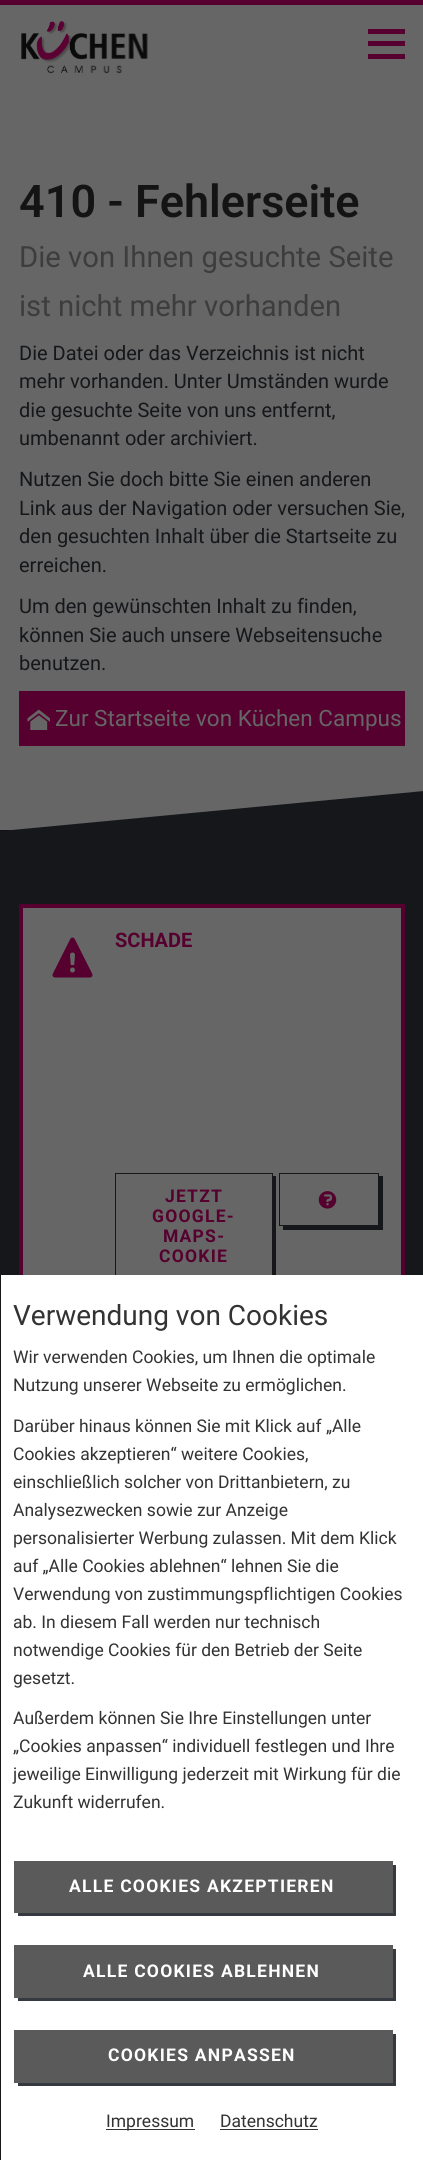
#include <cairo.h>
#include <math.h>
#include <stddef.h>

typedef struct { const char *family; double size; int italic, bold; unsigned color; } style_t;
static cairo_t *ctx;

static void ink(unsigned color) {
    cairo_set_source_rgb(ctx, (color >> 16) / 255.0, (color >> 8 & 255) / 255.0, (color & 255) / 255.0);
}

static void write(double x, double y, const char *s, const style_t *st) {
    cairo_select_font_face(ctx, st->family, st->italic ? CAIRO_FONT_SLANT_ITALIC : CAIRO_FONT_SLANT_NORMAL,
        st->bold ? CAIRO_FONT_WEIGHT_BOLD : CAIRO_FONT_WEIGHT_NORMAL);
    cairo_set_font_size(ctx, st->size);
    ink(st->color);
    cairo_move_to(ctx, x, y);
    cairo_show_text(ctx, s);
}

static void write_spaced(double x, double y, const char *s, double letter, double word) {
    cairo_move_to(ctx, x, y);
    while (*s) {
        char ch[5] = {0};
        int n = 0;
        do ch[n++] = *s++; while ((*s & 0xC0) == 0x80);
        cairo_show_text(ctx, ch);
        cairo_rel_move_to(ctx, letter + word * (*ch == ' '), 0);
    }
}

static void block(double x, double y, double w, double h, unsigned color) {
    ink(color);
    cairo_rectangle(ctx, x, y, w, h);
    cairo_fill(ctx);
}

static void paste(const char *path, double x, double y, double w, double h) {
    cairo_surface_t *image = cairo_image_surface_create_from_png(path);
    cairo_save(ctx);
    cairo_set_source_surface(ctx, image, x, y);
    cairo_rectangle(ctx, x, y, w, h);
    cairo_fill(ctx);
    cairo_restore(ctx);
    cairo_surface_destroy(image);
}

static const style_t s1 = {"Roboto SemiBold", 45, 0, 0, 0x141414};
static const style_t s2 = {"Roboto", 29.25, 0, 0, 0x3d3d3d};
static const style_t s3 = {"Roboto", 20, 0, 0, 0x15171a};
static const style_t s4 = {"Roboto", 22.5, 0, 0, 0x666666};
static const style_t s5 = {"Roboto", 20, 0, 1, 0x56002f};
static const style_t s6 = {"Roboto", 28, 0, 0, 0x333333};
static const style_t s7 = {"Roboto", 17.5, 0, 0, 0x333333};

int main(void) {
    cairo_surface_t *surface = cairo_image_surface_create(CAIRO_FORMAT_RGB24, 423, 2160);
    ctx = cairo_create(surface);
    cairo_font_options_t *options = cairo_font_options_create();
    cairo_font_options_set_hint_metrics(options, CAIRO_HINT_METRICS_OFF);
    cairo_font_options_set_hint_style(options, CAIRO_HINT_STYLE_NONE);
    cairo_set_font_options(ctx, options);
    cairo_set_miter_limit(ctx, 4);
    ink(0x666666);
    cairo_paint(ctx);
    block(0, 0, 423, 5, 0x56002f);
    paste("pic1.png", 21, 21, 127, 53);
    block(368, 29, 37, 5, 0x56002f);
    block(368, 41, 37, 5, 0x56002f);
    block(368, 54, 37, 5, 0x56002f);
    write(19, 217, "410 - Fehlerseite", &s1);
    write(19, 267, "Die von Ihnen gesuchte Seite", &s2);
    write(19, 316, "ist nicht mehr vorhanden", &s2);
    write(19, 360, "Die Datei oder das Verzeichnis ist nicht", &s3);
    write(19, 388, "mehr vorhanden. Unter Umständen wurde", &s3);
    write(19, 417, "die gesuchte Seite von uns entfernt,", &s3);
    write(19, 445, "umbenannt oder archiviert.", &s3);
    write(19, 486, "Nutzen Sie doch bitte Sie einen anderen", &s3);
    write(19, 515, "Link aus der Navigation oder versuchen Sie,", &s3);
    write(19, 543, "den gesuchten Inhalt über die Startseite zu", &s3);
    write(19, 572, "erreichen.", &s3);
    write(19, 613, "Um den gewünschten Inhalt zu finden,", &s3);
    write(19, 642, "können Sie auch unsere Webseitensuche", &s3);
    write(19, 670, "benutzen.", &s3);
    block(19, 691, 386, 55, 0x56002f);
    paste("pic2.png", 27, 709, 23, 21);
    write(55, 726, "Zur Startseite von Küchen Campus", &s4);
    block(0, 831, 423, 1329, 0x15171a);
    block(0, 830, 12, 1, 0x101214);
    ink(0x15171a);
    cairo_new_path(ctx);
    cairo_move_to(ctx, 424, 791);
    cairo_line_to(ctx, 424, 831);
    cairo_line_to(ctx, 1, 831);
    cairo_close_path(ctx);
    cairo_fill(ctx);
    block(23, 908, 378, 367, 0x666666);
    cairo_rectangle(ctx, 21, 906, 382, 428);
    ink(0x56002f);
    cairo_set_line_width(ctx, 4);
    cairo_stroke(ctx);
    paste("pic3.png", 52, 937, 41, 41);
    write(115, 947, "SCHADE", &s5);
    ink(0x15171a);
    cairo_new_path(ctx);
    cairo_move_to(ctx, 119, 1300);
    cairo_line_to(ctx, 119, 1304);
    cairo_line_to(ctx, 276, 1304);
    cairo_line_to(ctx, 276, 1176);
    cairo_line_to(ctx, 272, 1176);
    cairo_line_to(ctx, 272, 1300);
    cairo_close_path(ctx);
    cairo_fill(ctx);
    cairo_rectangle(ctx, 115.5, 1173.5, 157, 126);
    cairo_set_line_width(ctx, 1);
    cairo_stroke(ctx);
    cairo_set_font_size(ctx, 17.5);
    ink(0x56002f);
    write_spaced(165, 1202, "JETZT", 1.25, 0);
    write_spaced(152, 1222, "GOOGLE-", 1.25, 0);
    write_spaced(163, 1242, "MAPS-", 1.25, 0);
    write_spaced(159, 1262, "COOKIE", 1.25, 0);
    ink(0x15171a);
    cairo_new_path(ctx);
    cairo_move_to(ctx, 283, 1226);
    cairo_line_to(ctx, 283, 1230);
    cairo_line_to(ctx, 383, 1230);
    cairo_line_to(ctx, 383, 1176);
    cairo_line_to(ctx, 379, 1176);
    cairo_line_to(ctx, 379, 1226);
    cairo_close_path(ctx);
    cairo_fill(ctx);
    cairo_rectangle(ctx, 279.5, 1173.5, 99, 52);
    cairo_stroke(ctx);
    paste("pic4.png", 318, 1191, 19, 18);
    block(1, 1275, 422, 885, 0xffffff);
    write(13, 1325, "Verwendung von Cookies", &s6);
    write(13, 1363, "Wir verwenden Cookies, um Ihnen die optimale", &s7);
    write(13, 1391, "Nutzung unserer Webseite zu ermöglichen.", &s7);
    write(13, 1432, "Darüber hinaus können Sie mit Klick auf „Alle", &s7);
    write(13, 1460, "Cookies akzeptieren“ weitere Cookies,", &s7);
    write(13, 1488, "einschließlich solcher von Drittanbietern, zu", &s7);
    write(13, 1516, "Analysezwecken sowie zur Anzeige", &s7);
    write(13, 1544, "personalisierter Werbung zulassen. Mit dem Klick", &s7);
    write(13, 1572, "auf „Alle Cookies ablehnen“ lehnen Sie die", &s7);
    write(13, 1600, "Verwendung von zustimmungspflichtigen Cookies", &s7);
    write(13, 1628, "ab. In diesem Fall werden nur technisch", &s7);
    write(13, 1656, "notwendige Cookies für den Betrieb der Seite", &s7);
    write(13, 1684, "gesetzt.", &s7);
    write(13, 1724, "Außerdem können Sie Ihre Einstellungen unter", &s7);
    write(13, 1752, "„Cookies anpassen“ individuell festlegen und Ihre", &s7);
    write(13, 1780, "jeweilige Einwilligung jederzeit mit Wirkung für die", &s7);
    write(13, 1808, "Zukunft widerrufen.", &s7);
    ink(0x343a40);
    cairo_new_path(ctx);
    cairo_move_to(ctx, 18, 1912);
    cairo_line_to(ctx, 18, 1916);
    cairo_line_to(ctx, 396, 1916);
    cairo_line_to(ctx, 396, 1865);
    cairo_line_to(ctx, 392, 1865);
    cairo_line_to(ctx, 392, 1912);
    cairo_close_path(ctx);
    cairo_fill(ctx);
    block(14, 1861, 379, 52, 0x5a5a5a);
    cairo_select_font_face(ctx, "Roboto", CAIRO_FONT_SLANT_NORMAL, CAIRO_FONT_WEIGHT_BOLD);
    ink(0xffffff);
    write_spaced(69, 1892, "ALLE COOKIES AKZEPTIEREN", 1.25, 0);
    ink(0x343a40);
    cairo_new_path(ctx);
    cairo_move_to(ctx, 18, 1998);
    cairo_line_to(ctx, 18, 2001);
    cairo_line_to(ctx, 396, 2001);
    cairo_line_to(ctx, 396, 1949);
    cairo_line_to(ctx, 392, 1949);
    cairo_line_to(ctx, 392, 1998);
    cairo_close_path(ctx);
    cairo_fill(ctx);
    block(14, 1945, 379, 53, 0x5a5a5a);
    ink(0xffffff);
    write_spaced(83, 1977, "ALLE COOKIES ABLEHNEN", 1.25, 0);
    ink(0x343a40);
    cairo_new_path(ctx);
    cairo_move_to(ctx, 18, 2082);
    cairo_line_to(ctx, 18, 2086);
    cairo_line_to(ctx, 396, 2086);
    cairo_line_to(ctx, 396, 2034);
    cairo_line_to(ctx, 392, 2034);
    cairo_line_to(ctx, 392, 2082);
    cairo_close_path(ctx);
    cairo_fill(ctx);
    block(14, 2030, 379, 53, 0x5a5a5a);
    ink(0xffffff);
    write_spaced(108, 2061, "COOKIES ANPASSEN", 1.25, 0);
    block(106, 2129, 89, 1, 0x333333);
    write(106, 2127, "Impressum", &s7);
    write(220, 2127, "Datenschutz", &s7);
    block(220, 2129, 98, 1, 0x333333);
    cairo_surface_write_to_png(surface, "screenshot.png");
    cairo_font_options_destroy(options);
    cairo_destroy(ctx);
    cairo_surface_destroy(surface);
    return 0;
}
